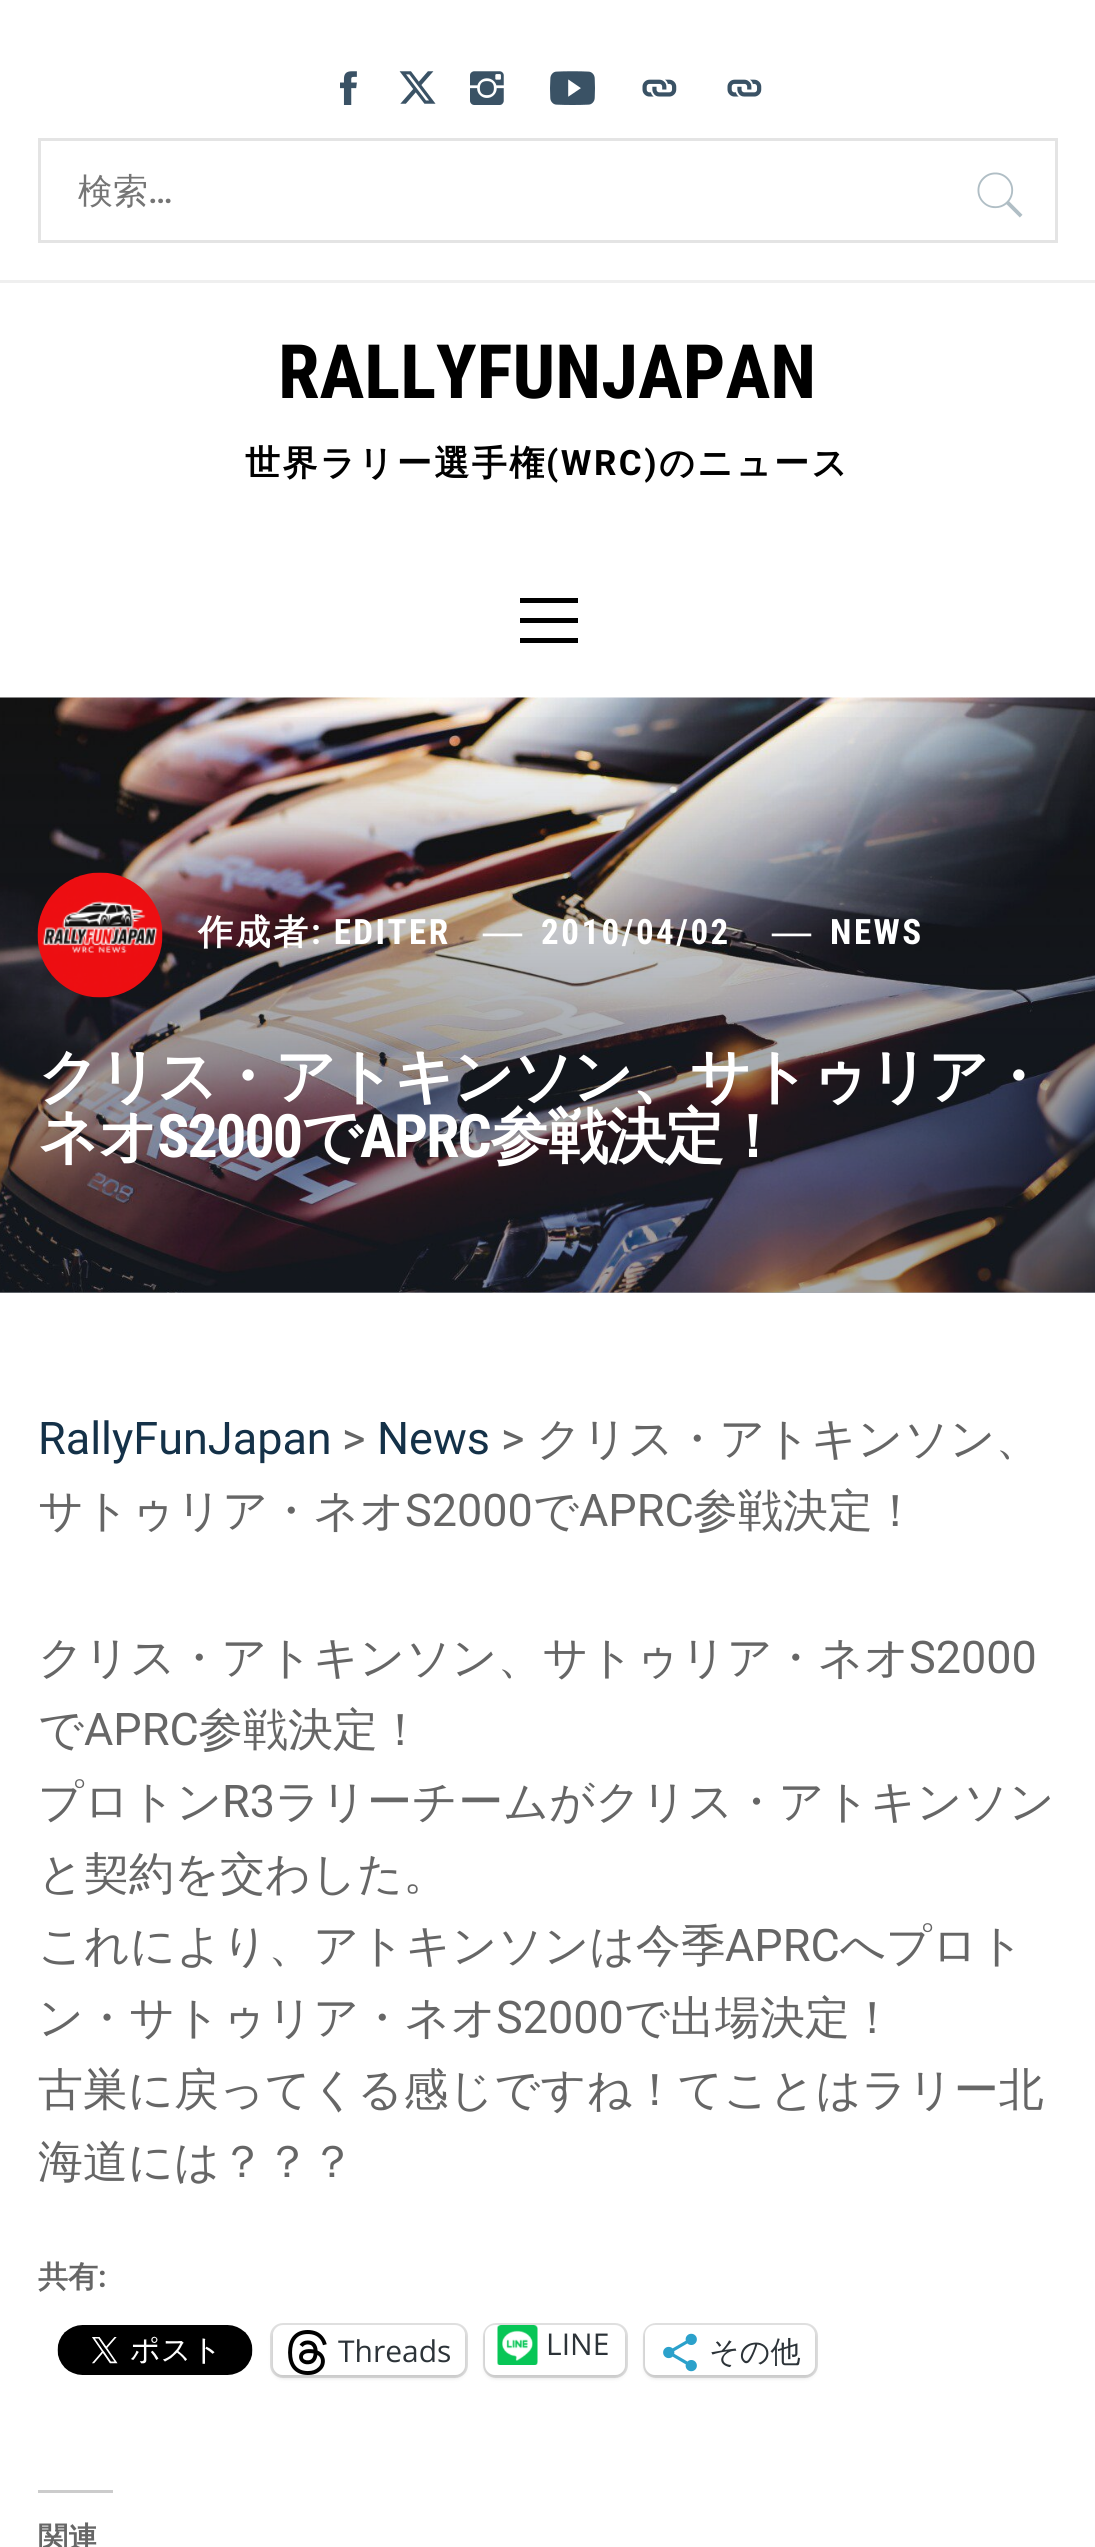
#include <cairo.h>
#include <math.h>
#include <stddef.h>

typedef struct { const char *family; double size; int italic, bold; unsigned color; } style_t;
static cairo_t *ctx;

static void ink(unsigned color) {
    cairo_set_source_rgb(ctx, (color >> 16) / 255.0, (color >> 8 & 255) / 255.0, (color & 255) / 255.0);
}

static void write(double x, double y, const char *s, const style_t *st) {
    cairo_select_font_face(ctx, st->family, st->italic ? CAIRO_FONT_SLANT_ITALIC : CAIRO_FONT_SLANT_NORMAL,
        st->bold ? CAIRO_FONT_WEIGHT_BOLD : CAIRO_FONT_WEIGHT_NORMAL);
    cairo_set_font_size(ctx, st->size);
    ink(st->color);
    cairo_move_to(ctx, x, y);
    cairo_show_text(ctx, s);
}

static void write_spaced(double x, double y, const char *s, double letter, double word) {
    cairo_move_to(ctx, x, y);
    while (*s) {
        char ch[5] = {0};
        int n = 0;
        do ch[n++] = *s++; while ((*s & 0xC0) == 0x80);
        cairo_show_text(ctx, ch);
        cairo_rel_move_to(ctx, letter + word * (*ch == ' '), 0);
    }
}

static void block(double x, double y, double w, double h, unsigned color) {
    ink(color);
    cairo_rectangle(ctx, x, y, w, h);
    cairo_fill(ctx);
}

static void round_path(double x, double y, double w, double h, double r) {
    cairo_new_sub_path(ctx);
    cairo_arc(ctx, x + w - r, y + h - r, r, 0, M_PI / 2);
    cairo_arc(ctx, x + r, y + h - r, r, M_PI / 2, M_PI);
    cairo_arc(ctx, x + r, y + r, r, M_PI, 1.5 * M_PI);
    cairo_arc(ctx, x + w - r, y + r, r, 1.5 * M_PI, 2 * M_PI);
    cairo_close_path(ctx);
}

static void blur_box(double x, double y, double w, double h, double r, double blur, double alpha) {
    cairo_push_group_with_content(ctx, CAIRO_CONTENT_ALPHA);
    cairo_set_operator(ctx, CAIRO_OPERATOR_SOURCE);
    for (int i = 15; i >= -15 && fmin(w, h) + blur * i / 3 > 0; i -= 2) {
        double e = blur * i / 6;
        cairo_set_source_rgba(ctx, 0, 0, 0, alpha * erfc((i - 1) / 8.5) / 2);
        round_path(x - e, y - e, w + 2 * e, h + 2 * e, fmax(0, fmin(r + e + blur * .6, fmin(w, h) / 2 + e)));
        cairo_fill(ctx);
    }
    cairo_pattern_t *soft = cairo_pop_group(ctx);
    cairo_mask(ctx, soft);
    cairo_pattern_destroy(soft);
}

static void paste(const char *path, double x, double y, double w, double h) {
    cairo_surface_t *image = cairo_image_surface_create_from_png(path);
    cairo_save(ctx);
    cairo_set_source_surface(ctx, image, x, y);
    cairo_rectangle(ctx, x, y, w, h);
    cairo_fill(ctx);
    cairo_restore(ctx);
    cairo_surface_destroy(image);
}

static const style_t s1 = {"WenQuanYi Zen Hei Medium", 35, 0, 0, 0x757575};
static const style_t s2 = {"Roboto Medium", 35, 0, 0, 0x757575};
static const style_t s3 = {"Roboto Condensed", 75, 0, 1, 0x000000};
static const style_t s4 = {"Liberation Serif", 39, 0, 1, 0xffffff};
static const style_t s5 = {"Roboto", 45, 0, 0, 0x143148};
static const style_t s6 = {"Roboto", 45, 0, 0, 0x666666};
static const style_t s7 = {"WenQuanYi Zen Hei Medium", 45, 0, 0, 0x666666};
static const style_t s8 = {"WenQuanYi Zen Hei", 30, 0, 1, 0x666666};
static const style_t s9 = {"Roboto Condensed", 30, 0, 1, 0x666666};
static const style_t s10 = {"Open Sans", 30, 0, 0, 0x2c3338};
static const style_t s11 = {"WenQuanYi Zen Hei Medium", 30, 0, 0, 0x2c3338};

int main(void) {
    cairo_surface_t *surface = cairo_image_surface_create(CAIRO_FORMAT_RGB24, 1095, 2547);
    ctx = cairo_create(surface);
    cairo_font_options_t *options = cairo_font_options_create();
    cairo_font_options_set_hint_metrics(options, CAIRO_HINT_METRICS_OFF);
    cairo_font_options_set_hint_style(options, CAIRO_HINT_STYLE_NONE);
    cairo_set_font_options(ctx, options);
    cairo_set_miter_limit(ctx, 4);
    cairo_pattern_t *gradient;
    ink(0xffffff);
    cairo_paint(ctx);
    block(0, 280, 1095, 3, 0xefefef);
    paste("pic1.png", 340, 71, 17, 34);
    paste("pic2.png", 399, 71, 37, 33);
    paste("pic3.png", 470, 71, 34, 34);
    paste("pic4.png", 550, 71, 45, 34);
    paste("pic5.png", 642, 79, 35, 18);
    paste("pic5.png", 727, 79, 35, 18);
    cairo_rectangle(ctx, 39.5, 139.5, 1017, 102);
    ink(0xe4e4e4);
    cairo_set_line_width(ctx, 3);
    cairo_stroke(ctx);
    write(78, 203, "検索", &s1);
    write(148, 203, "…", &s2);
    paste("pic6.png", 977, 172, 46, 46);
    write(278, 398, "RALLYFUNJAPAN", &s3);
    cairo_select_font_face(ctx, "WenQuanYi Zen Hei", CAIRO_FONT_SLANT_NORMAL, CAIRO_FONT_WEIGHT_BOLD);
    cairo_set_font_size(ctx, 35);
    write_spaced(245, 475, "世界ラリー選手権", 2.5, 0);
    cairo_select_font_face(ctx, "Roboto", CAIRO_FONT_SLANT_NORMAL, CAIRO_FONT_WEIGHT_BOLD);
    write_spaced(546, 475, "(WRC)", 2.5, 0);
    cairo_select_font_face(ctx, "WenQuanYi Zen Hei", CAIRO_FONT_SLANT_NORMAL, CAIRO_FONT_WEIGHT_BOLD);
    write_spaced(659, 475, "のニュース", 2.5, 0);
    block(520, 618, 58, 5, 0x000000);
    block(520, 598, 58, 5, 0x000000);
    block(520, 638, 58, 5, 0x000000);
    paste("pic7.png", 0, 697, 1095, 596);
    gradient = cairo_pattern_create_linear(548, 698, 547, 1293);
    cairo_pattern_add_color_stop_rgba(gradient, 0, 0.086, 0.122, 0.188, 0);
    cairo_pattern_add_color_stop_rgba(gradient, 0.58, 0.086, 0.122, 0.188, 0.38);
    cairo_set_source(ctx, gradient);
    cairo_pattern_destroy(gradient);
    cairo_rectangle(ctx, 0, 717, 1095, 576);
    cairo_fill(ctx);
    paste("pic8.png", 37, 872, 126, 126);
    ink(0xffffff);
    write_spaced(198, 944, "作成者", 2.5, 0);
    cairo_select_font_face(ctx, "Roboto Condensed", CAIRO_FONT_SLANT_NORMAL, CAIRO_FONT_WEIGHT_BOLD);
    write_spaced(311, 944, ": EDITER", 2.5, 0);
    write(483, 944, "—", &s4);
    cairo_select_font_face(ctx, "Roboto Condensed", CAIRO_FONT_SLANT_NORMAL, CAIRO_FONT_WEIGHT_BOLD);
    cairo_set_font_size(ctx, 35);
    write_spaced(541, 944, "2010/04/02", 2.5, 0);
    write(772, 944, "—", &s4);
    cairo_select_font_face(ctx, "Roboto Condensed", CAIRO_FONT_SLANT_NORMAL, CAIRO_FONT_WEIGHT_BOLD);
    cairo_set_font_size(ctx, 35);
    write_spaced(830, 944, "NEWS", 2.5, 0);
    cairo_select_font_face(ctx, "WenQuanYi Zen Hei", CAIRO_FONT_SLANT_NORMAL, CAIRO_FONT_WEIGHT_BOLD);
    cairo_set_font_size(ctx, 60);
    write_spaced(38, 1097, "クリス・アトキンソン、サトゥリア・", -1.9, 0);
    write_spaced(38, 1157, "ネオ", -1.9, 0);
    cairo_select_font_face(ctx, "Roboto Condensed", CAIRO_FONT_SLANT_NORMAL, CAIRO_FONT_WEIGHT_BOLD);
    write_spaced(157, 1157, "S2000", -1.9, 0);
    cairo_select_font_face(ctx, "WenQuanYi Zen Hei", CAIRO_FONT_SLANT_NORMAL, CAIRO_FONT_WEIGHT_BOLD);
    write_spaced(301, 1157, "で", -1.9, 0);
    cairo_select_font_face(ctx, "Roboto Condensed", CAIRO_FONT_SLANT_NORMAL, CAIRO_FONT_WEIGHT_BOLD);
    write_spaced(360, 1157, "APRC", -1.9, 0);
    cairo_select_font_face(ctx, "WenQuanYi Zen Hei", CAIRO_FONT_SLANT_NORMAL, CAIRO_FONT_WEIGHT_BOLD);
    write_spaced(490, 1157, "参戦決定！", -1.9, 0);
    write(38, 1454, "RallyFunJapan", &s5);
    write(342, 1454, ">", &s6);
    write(377, 1454, "News", &s5);
    write(501, 1454, ">", &s6);
    write(536, 1454, "クリス・アトキンソン、", &s7);
    write(38, 1526, "サトゥリア・ネオ", &s7);
    write(405, 1526, "S2000", &s6);
    write(533, 1526, "で", &s7);
    write(579, 1526, "APRC", &s6);
    write(693, 1526, "参戦決定！", &s7);
    write(38, 1673, "クリス・アトキンソン、サトゥリア・ネオ", &s7);
    write(909, 1673, "S2000", &s6);
    write(38, 1745, "で", &s7);
    write(84, 1745, "APRC", &s6);
    write(198, 1745, "参戦決定！", &s7);
    write(38, 1817, "プロトン", &s7);
    write(222, 1817, "R3", &s6);
    write(275, 1817, "ラリーチームがクリス・アトキンソン", &s7);
    write(38, 1889, "と契約を交わした。", &s7);
    write(38, 1961, "これにより、アトキンソンは今季", &s7);
    write(725, 1961, "APRC", &s6);
    write(840, 1961, "へプロト", &s7);
    write(38, 2033, "ン・サトゥリア・ネオ", &s7);
    write(496, 2033, "S2000", &s6);
    write(624, 2033, "で出場決定！", &s7);
    write(38, 2105, "古巣に戻ってくる感じですね！てことはラリー北", &s7);
    write(38, 2177, "海道には？？？", &s7);
    write(38, 2287, "共有", &s8);
    write(98, 2287, ":", &s9);
    paste("pic9.png", 57, 2325, 196, 50);
    round_path(271.5, 2324.5, 195, 52, 11.5);
    ink(0xe0e0e0);
    cairo_stroke(ctx);
    ink(0x000000);
    blur_box(273, 2328, 192, 50, 10, 2.5, 0.12);
    ink(0xffffff);
    round_path(273, 2325, 192, 50, 10);
    cairo_fill(ctx);
    paste("pic10.png", 288, 2330, 39, 45);
    write(338, 2362, "Threads", &s10);
    round_path(484.5, 2324.5, 142, 52, 11.5);
    ink(0xe0e0e0);
    cairo_stroke(ctx);
    ink(0x000000);
    blur_box(485, 2328, 140, 50, 10, 2.5, 0.12);
    ink(0xffffff);
    round_path(485, 2325, 140, 50, 10);
    cairo_fill(ctx);
    paste("pic11.png", 497, 2325, 41, 40);
    write(546, 2355, "LINE", &s10);
    round_path(644.5, 2324.5, 172, 52, 11.5);
    ink(0xe0e0e0);
    cairo_stroke(ctx);
    ink(0x000000);
    blur_box(645, 2328, 170, 50, 10, 2.5, 0.12);
    ink(0xffffff);
    round_path(645, 2325, 170, 50, 10);
    cairo_fill(ctx);
    paste("pic12.png", 663, 2333, 34, 39);
    write(709, 2362, "その他", &s11);
    block(38, 2490, 75, 3, 0xcccccc);
    write(38, 2548, "関連", &s8);
    cairo_surface_write_to_png(surface, "screenshot.png");
    cairo_font_options_destroy(options);
    cairo_destroy(ctx);
    cairo_surface_destroy(surface);
    return 0;
}
